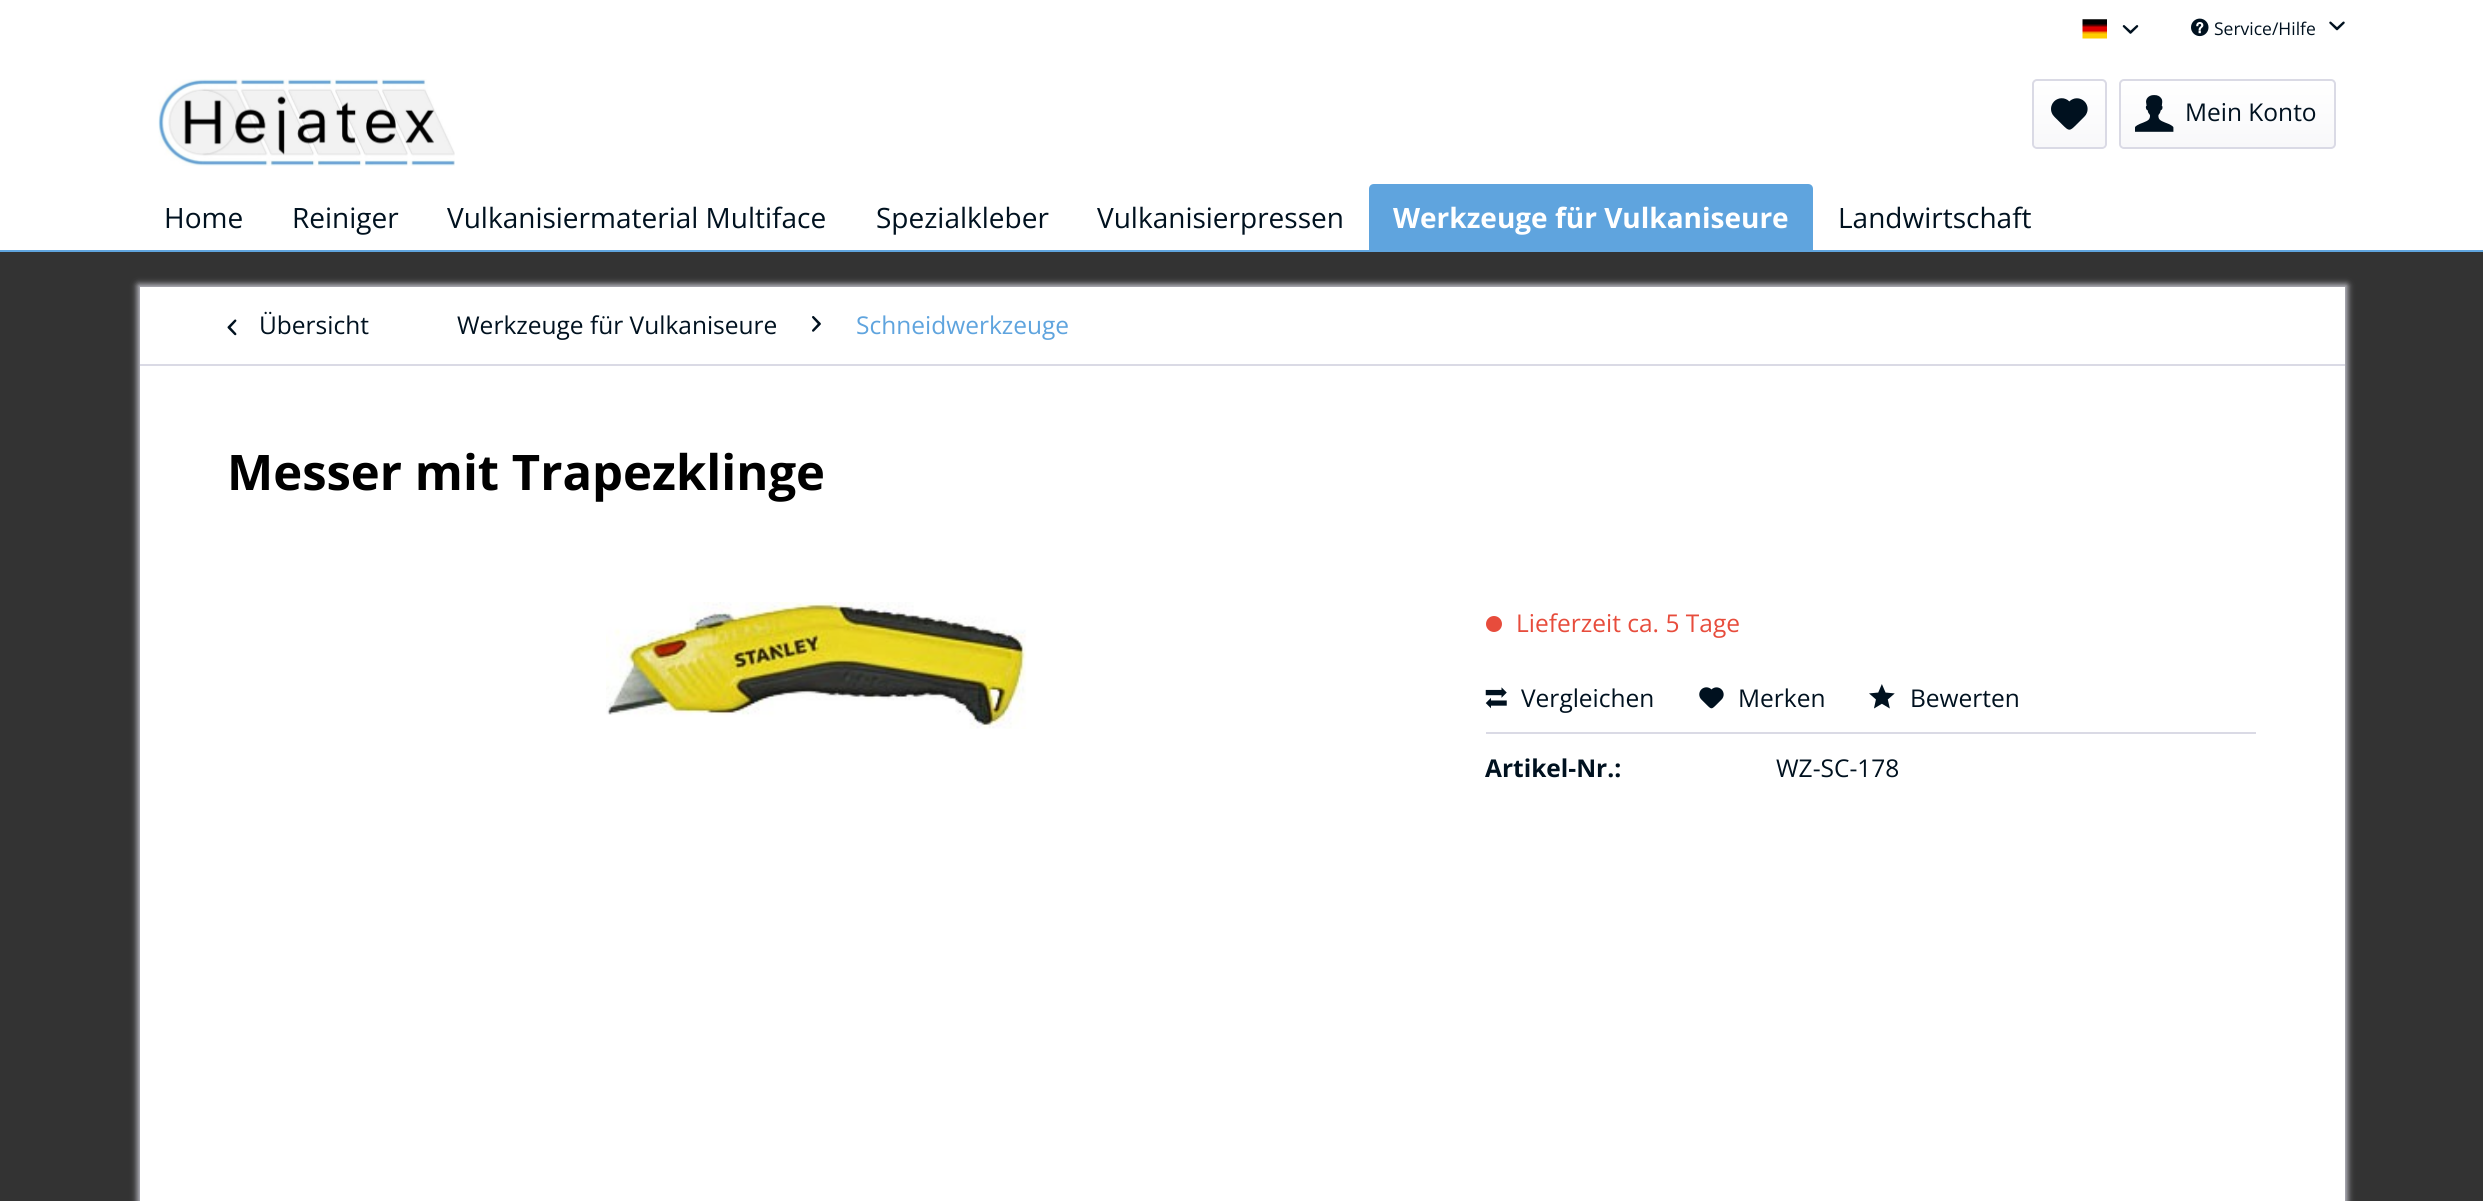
#include <cairo.h>
#include <math.h>
#include <stddef.h>

typedef struct { const char *family; double size; int italic, bold; unsigned color; } style_t;
static cairo_t *ctx;

static void ink(unsigned color) {
    cairo_set_source_rgb(ctx, (color >> 16) / 255.0, (color >> 8 & 255) / 255.0, (color & 255) / 255.0);
}

static void write(double x, double y, const char *s, const style_t *st) {
    cairo_select_font_face(ctx, st->family, st->italic ? CAIRO_FONT_SLANT_ITALIC : CAIRO_FONT_SLANT_NORMAL,
        st->bold ? CAIRO_FONT_WEIGHT_BOLD : CAIRO_FONT_WEIGHT_NORMAL);
    cairo_set_font_size(ctx, st->size);
    ink(st->color);
    cairo_move_to(ctx, x, y);
    cairo_show_text(ctx, s);
}

static void block(double x, double y, double w, double h, unsigned color) {
    ink(color);
    cairo_rectangle(ctx, x, y, w, h);
    cairo_fill(ctx);
}

static void round_path(double x, double y, double w, double h, double r) {
    cairo_new_sub_path(ctx);
    cairo_arc(ctx, x + w - r, y + h - r, r, 0, M_PI / 2);
    cairo_arc(ctx, x + r, y + h - r, r, M_PI / 2, M_PI);
    cairo_arc(ctx, x + r, y + r, r, M_PI, 1.5 * M_PI);
    cairo_arc(ctx, x + w - r, y + r, r, 1.5 * M_PI, 2 * M_PI);
    cairo_close_path(ctx);
}

static void blur_box(double x, double y, double w, double h, double r, double blur, double alpha) {
    cairo_push_group_with_content(ctx, CAIRO_CONTENT_ALPHA);
    cairo_set_operator(ctx, CAIRO_OPERATOR_SOURCE);
    for (int i = 15; i >= -15 && fmin(w, h) + blur * i / 3 > 0; i -= 2) {
        double e = blur * i / 6;
        cairo_set_source_rgba(ctx, 0, 0, 0, alpha * erfc((i - 1) / 8.5) / 2);
        round_path(x - e, y - e, w + 2 * e, h + 2 * e, fmax(0, fmin(r + e + blur * .6, fmin(w, h) / 2 + e)));
        cairo_fill(ctx);
    }
    cairo_pattern_t *soft = cairo_pop_group(ctx);
    cairo_mask(ctx, soft);
    cairo_pattern_destroy(soft);
}

static void paste(const char *path, double x, double y, double w, double h) {
    cairo_surface_t *image = cairo_image_surface_create_from_png(path);
    cairo_save(ctx);
    cairo_set_source_surface(ctx, image, x, y);
    cairo_rectangle(ctx, x, y, w, h);
    cairo_fill(ctx);
    cairo_restore(ctx);
    cairo_surface_destroy(image);
}

static const style_t s1 = {"Open Sans", 17.5, 0, 0, 0x00111f};
static const style_t s2 = {"Open Sans", 24.5, 0, 0, 0x00111f};
static const style_t s3 = {"Open Sans", 28, 0, 0, 0x00111f};
static const style_t s4 = {"Open Sans", 28, 0, 1, 0xffffff};
static const style_t s5 = {"Open Sans", 24.5, 0, 0, 0x5fa4de};
static const style_t s6 = {"Open Sans", 49, 0, 1, 0x000000};
static const style_t s7 = {"Open Sans", 24.5, 0, 0, 0xe74c3c};
static const style_t s8 = {"Open Sans", 24.5, 0, 1, 0x00111f};

int main(void) {
    cairo_surface_t *surface = cairo_image_surface_create(CAIRO_FORMAT_RGB24, 2483, 1201);
    ctx = cairo_create(surface);
    cairo_font_options_t *options = cairo_font_options_create();
    cairo_font_options_set_hint_metrics(options, CAIRO_HINT_METRICS_OFF);
    cairo_font_options_set_hint_style(options, CAIRO_HINT_STYLE_NONE);
    cairo_set_font_options(ctx, options);
    cairo_set_miter_limit(ctx, 4);
    cairo_pattern_t *gradient;
    ink(0x333333);
    cairo_paint(ctx);
    block(0, 0, 2483, 250, 0xffffff);
    paste("pic1.png", 2082, 19, 25, 20);
    paste("pic2.png", 2122, 25, 17, 9);
    paste("pic3.png", 2191, 18, 18, 19);
    write(2214, 35, "Service/Hilfe", &s1);
    paste("pic4.png", 2329, 21, 16, 10);
    paste("pic5.png", 158, 79, 297, 87);
    gradient = cairo_pattern_create_linear(2069, 81, 2069, 147);
    cairo_pattern_add_color_stop_rgba(gradient, 0, 1, 1, 1, 1);
    cairo_pattern_add_color_stop_rgba(gradient, 1, 0.973, 0.973, 0.98, 1);
    cairo_set_source(ctx, gradient);
    cairo_pattern_destroy(gradient);
    round_path(2034, 81, 71, 66, 4);
    cairo_fill(ctx);
    round_path(2033, 80, 73, 68, 4);
    ink(0xdadae5);
    cairo_stroke(ctx);
    paste("pic6.png", 2051, 98, 37, 32);
    gradient = cairo_pattern_create_linear(2228, 80, 2228, 147);
    cairo_pattern_add_color_stop_rgba(gradient, 0, 1, 1, 1, 1);
    cairo_pattern_add_color_stop_rgba(gradient, 1, 0.973, 0.973, 0.98, 1);
    cairo_set_source(ctx, gradient);
    cairo_pattern_destroy(gradient);
    round_path(2121, 81, 214, 66, 4);
    cairo_fill(ctx);
    round_path(2120, 80, 215, 68, 4);
    ink(0xdadae5);
    cairo_stroke(ctx);
    paste("pic7.png", 2135, 95, 39, 37);
    write(2185, 121, "Mein Konto", &s2);
    block(0, 250, 2483, 2, 0x5fa4de);
    write(164, 228, "Home", &s3);
    write(292, 228, "Reiniger", &s3);
    write(447, 228, "Vulkanisiermaterial Multiface", &s3);
    write(876, 228, "Spezialkleber", &s3);
    write(1097, 228, "Vulkanisierpressen", &s3);
    ink(0x5fa4de);
    cairo_new_path(ctx);
    cairo_move_to(ctx, 1374, 184);
    cairo_line_to(ctx, 1808, 184);
    cairo_curve_to(ctx, 1811, 184, 1813, 186, 1813, 189);
    cairo_line_to(ctx, 1813, 250);
    cairo_line_to(ctx, 1369, 250);
    cairo_line_to(ctx, 1369, 189);
    cairo_curve_to(ctx, 1369, 186, 1371, 184, 1374, 184);
    cairo_close_path(ctx);
    cairo_fill(ctx);
    write(1393, 228, "Werkzeuge für Vulkaniseure", &s4);
    write(1838, 228, "Landwirtschaft", &s3);
    ink(0xdadae5);
    blur_box(138, 285, 2209, 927, 0, 3.5, 1);
    block(140, 287, 2205, 914, 0xffffff);
    block(140, 364, 2205, 2, 0xdadae5);
    paste("pic8.png", 227, 319, 10, 17);
    write(259, 334, "Übersicht", &s2);
    write(457, 334, "Werkzeuge für Vulkaniseure", &s2);
    paste("pic9.png", 812, 316, 9, 16);
    write(856, 334, "Schneidwerkzeuge", &s5);
    write(227, 490, "Messer mit Trapezklinge", &s6);
    paste("pic10.png", 606, 602, 421, 127);
    ink(0xe74c3c);
    cairo_arc(ctx, 1494, 624, 8, 0, 2 * M_PI);
    cairo_fill(ctx);
    write(1516, 632, "Lieferzeit ca. 5 Tage", &s7);
    block(1486, 732, 770, 2, 0xdadae5);
    paste("pic11.png", 1485, 687, 22, 22);
    write(1521, 707, "Vergleichen", &s2);
    paste("pic12.png", 1699, 687, 25, 22);
    write(1738, 707, "Merken", &s2);
    paste("pic13.png", 1869, 684, 26, 25);
    write(1910, 707, "Bewerten", &s2);
    write(1485, 777, "Artikel-Nr.:", &s8);
    write(1776, 777, "WZ-SC-178", &s2);
    cairo_surface_write_to_png(surface, "screenshot.png");
    cairo_font_options_destroy(options);
    cairo_destroy(ctx);
    cairo_surface_destroy(surface);
    return 0;
}
